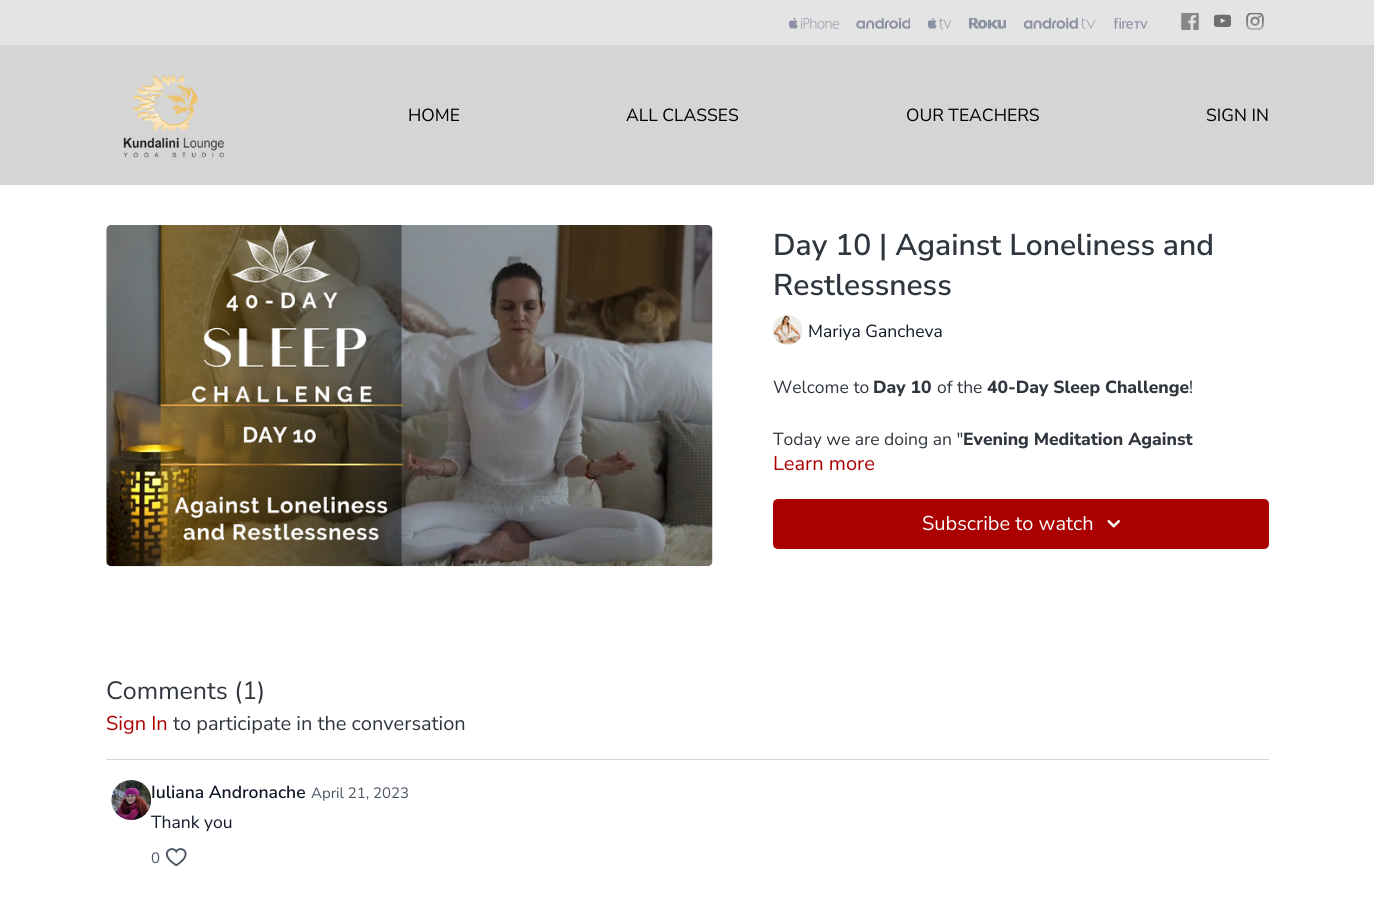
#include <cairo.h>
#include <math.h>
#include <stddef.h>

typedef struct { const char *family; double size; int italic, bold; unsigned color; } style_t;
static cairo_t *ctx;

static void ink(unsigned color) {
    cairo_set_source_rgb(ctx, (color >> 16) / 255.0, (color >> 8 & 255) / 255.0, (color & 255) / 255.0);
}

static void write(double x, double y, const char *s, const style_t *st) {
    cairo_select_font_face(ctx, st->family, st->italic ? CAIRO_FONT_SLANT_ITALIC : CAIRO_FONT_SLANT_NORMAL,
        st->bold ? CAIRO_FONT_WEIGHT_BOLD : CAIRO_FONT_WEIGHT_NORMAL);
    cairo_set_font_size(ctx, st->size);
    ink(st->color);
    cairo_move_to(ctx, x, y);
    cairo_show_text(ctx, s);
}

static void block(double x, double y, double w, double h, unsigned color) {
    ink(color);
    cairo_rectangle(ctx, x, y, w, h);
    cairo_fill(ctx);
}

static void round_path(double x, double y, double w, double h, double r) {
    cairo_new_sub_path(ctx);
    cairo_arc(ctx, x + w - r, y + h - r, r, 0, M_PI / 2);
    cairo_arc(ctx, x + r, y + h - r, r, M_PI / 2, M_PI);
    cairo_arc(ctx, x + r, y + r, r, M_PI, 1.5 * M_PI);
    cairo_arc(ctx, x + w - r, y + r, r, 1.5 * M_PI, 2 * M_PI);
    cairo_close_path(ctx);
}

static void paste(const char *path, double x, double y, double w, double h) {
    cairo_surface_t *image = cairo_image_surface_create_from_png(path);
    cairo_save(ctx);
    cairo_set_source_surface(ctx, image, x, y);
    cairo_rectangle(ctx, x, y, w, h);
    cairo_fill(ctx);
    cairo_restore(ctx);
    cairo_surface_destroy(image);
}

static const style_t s1 = {"Nunito Sans", 17.5, 0, 0, 0x000000};
static const style_t s2 = {"Nunito Sans SemiBold", 30, 0, 0, 0x30363e};
static const style_t s3 = {"Nunito Sans", 17.5, 0, 0, 0x111827};
static const style_t s4 = {"Nunito Sans", 17.5, 0, 0, 0x30363e};
static const style_t s5 = {"Nunito Sans ExtraBold", 17.5, 0, 0, 0x30363e};
static const style_t s6 = {"Nunito Sans", 20, 0, 0, 0xaa0000};
static const style_t s7 = {"Nunito Sans", 20, 0, 0, 0xffffff};
static const style_t s8 = {"Nunito Sans", 25, 0, 0, 0x30363e};
static const style_t s9 = {"Nunito Sans", 20, 0, 0, 0x30363e};
static const style_t s10 = {"Nunito Sans SemiBold", 17.5, 0, 0, 0x111827};
static const style_t s11 = {"Nunito Sans", 15, 0, 0, 0x4b5563};

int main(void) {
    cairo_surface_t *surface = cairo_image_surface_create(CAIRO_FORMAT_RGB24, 1374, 912);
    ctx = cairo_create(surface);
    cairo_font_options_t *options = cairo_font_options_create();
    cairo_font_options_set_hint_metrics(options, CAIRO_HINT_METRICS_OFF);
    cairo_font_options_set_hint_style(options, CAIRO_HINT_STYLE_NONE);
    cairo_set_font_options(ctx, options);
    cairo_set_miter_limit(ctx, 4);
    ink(0xffffff);
    cairo_paint(ctx);
    block(0, 0, 1374, 45, 0xe4e4e4);
    paste("pic1.png", 789, 18, 50, 11);
    paste("pic2.png", 856, 18, 54, 11);
    paste("pic3.png", 928, 18, 23, 11);
    paste("pic4.png", 969, 18, 37, 11);
    paste("pic5.png", 1024, 18, 72, 11);
    paste("pic6.png", 1114, 18, 34, 11);
    paste("pic7.png", 1181, 13, 18, 17);
    paste("pic8.png", 1214, 14, 17, 14);
    paste("pic9.png", 1246, 13, 18, 17);
    block(0, 45, 1374, 140, 0xd5d5d5);
    paste("pic10.png", 123, 72, 102, 86);
    write(408, 121, "HOME", &s1);
    write(626, 121, "ALL CLASSES", &s1);
    write(906, 121, "OUR TEACHERS", &s1);
    write(1206, 121, "SIGN IN", &s1);
    paste("pic11.png", 106, 225, 607, 342);
    write(773, 255, "Day 10 | Against Loneliness and", &s2);
    write(773, 295, "Restlessness", &s2);
    paste("pic12.png", 772, 315, 31, 30);
    write(808, 337, "Mariya Gancheva", &s3);
    write(773, 393, "Welcome to", &s4);
    write(873, 393, "Day 10", &s5);
    write(937, 393, "of the", &s4);
    write(987, 393, "40-Day Sleep Challenge", &s5);
    write(1189, 393, "!", &s4);
    write(773, 445, "Today we are doing an \"", &s4);
    write(963, 445, "Evening Meditation Against", &s5);
    write(773, 470, "Learn more", &s6);
    round_path(773, 499, 496, 50, 5);
    cairo_fill(ctx);
    write(922, 530, "Subscribe to watch", &s7);
    paste("pic13.png", 1107, 520, 13, 8);
    write(106, 699, "Comments (1)", &s8);
    write(106, 730, "Sign In", &s6);
    write(173, 730, "to participate in the conversation", &s9);
    block(106, 759, 1163, 1, 0xd1d5db);
    write(151, 828, "Thank you", &s3);
    paste("pic14.png", 111, 780, 41, 40);
    write(151, 798, "Iuliana Andronache", &s10);
    write(311, 798, "April 21, 2023", &s11);
    write(151, 863, "0", &s11);
    paste("pic15.png", 165, 848, 22, 18);
    cairo_surface_write_to_png(surface, "screenshot.png");
    cairo_font_options_destroy(options);
    cairo_destroy(ctx);
    cairo_surface_destroy(surface);
    return 0;
}
